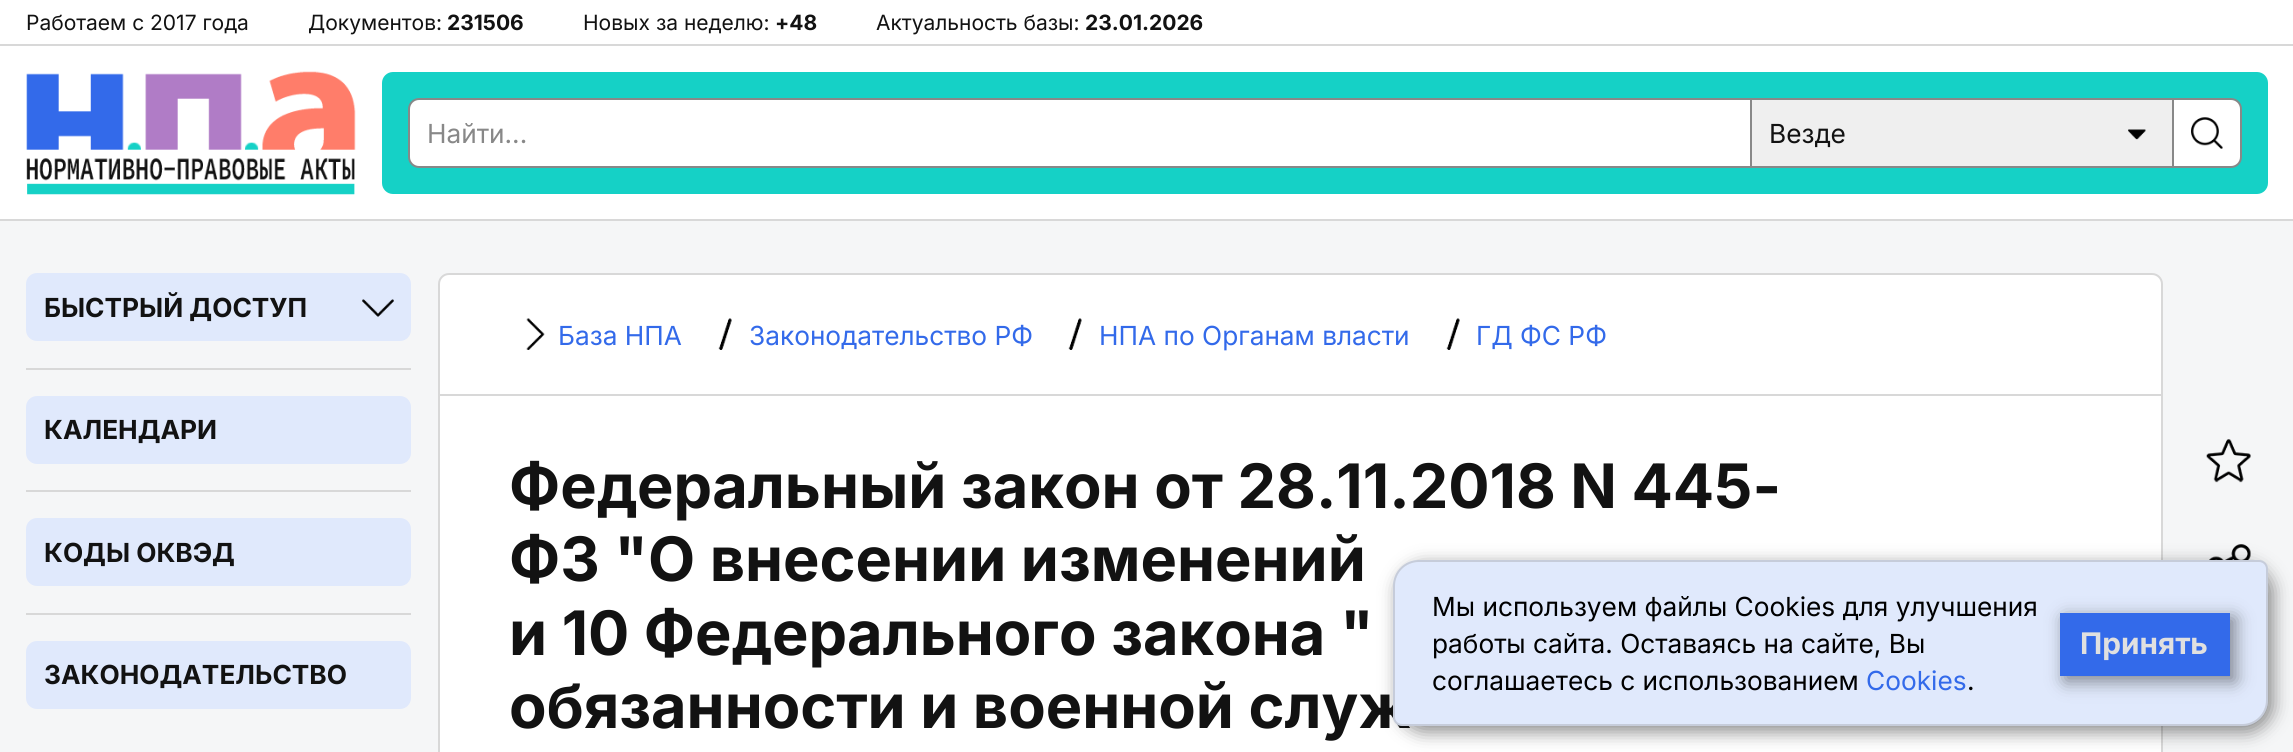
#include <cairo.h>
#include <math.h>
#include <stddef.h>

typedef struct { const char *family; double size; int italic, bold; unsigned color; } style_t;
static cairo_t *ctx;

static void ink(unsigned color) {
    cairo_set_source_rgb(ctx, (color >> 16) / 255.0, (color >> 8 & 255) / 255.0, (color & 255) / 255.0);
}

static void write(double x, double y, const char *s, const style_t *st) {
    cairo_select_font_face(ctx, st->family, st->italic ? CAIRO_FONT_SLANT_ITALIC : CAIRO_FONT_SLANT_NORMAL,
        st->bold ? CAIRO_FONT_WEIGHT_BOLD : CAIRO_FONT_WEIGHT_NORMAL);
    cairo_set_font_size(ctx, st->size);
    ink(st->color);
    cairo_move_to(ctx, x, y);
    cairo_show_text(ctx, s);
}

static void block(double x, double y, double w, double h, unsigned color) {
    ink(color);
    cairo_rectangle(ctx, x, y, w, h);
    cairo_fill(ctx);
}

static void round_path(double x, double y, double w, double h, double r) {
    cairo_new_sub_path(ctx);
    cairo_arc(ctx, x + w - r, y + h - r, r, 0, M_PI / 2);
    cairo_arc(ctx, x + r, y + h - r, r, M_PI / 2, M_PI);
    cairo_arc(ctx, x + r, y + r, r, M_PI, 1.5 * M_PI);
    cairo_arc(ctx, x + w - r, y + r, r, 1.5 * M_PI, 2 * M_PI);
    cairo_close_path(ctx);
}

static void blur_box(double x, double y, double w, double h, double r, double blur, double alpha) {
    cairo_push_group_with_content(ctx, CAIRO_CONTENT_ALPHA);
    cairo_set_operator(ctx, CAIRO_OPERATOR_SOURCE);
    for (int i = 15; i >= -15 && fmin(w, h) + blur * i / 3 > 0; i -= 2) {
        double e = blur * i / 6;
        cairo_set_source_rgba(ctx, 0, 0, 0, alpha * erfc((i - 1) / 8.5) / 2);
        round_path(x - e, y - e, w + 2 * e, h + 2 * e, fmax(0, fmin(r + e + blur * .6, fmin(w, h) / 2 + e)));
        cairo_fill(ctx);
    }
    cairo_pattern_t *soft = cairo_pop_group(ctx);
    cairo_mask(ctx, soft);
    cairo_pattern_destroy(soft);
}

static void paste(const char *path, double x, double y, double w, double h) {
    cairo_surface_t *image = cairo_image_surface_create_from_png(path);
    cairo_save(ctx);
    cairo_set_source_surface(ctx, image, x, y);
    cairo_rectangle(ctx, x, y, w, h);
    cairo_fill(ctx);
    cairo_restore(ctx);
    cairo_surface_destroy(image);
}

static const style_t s1 = {"Inter", 21, 0, 0, 0x121212};
static const style_t s2 = {"Inter", 21, 0, 1, 0x121212};
static const style_t s3 = {"Inter", 26.25, 0, 0, 0x888888};
static const style_t s4 = {"Inter", 26.25, 0, 0, 0x121212};
static const style_t s5 = {"Inter", 26.25, 0, 1, 0x121212};
static const style_t s6 = {"Inter", 26.25, 0, 0, 0x336aea};
static const style_t s7 = {"Inter", 61.25, 0, 1, 0x121212};
static const style_t s8 = {"Inter", 26.25, 0, 0, 0x000000};
static const style_t s9 = {"Inter", 29.75, 0, 1, 0xe0e0e0};

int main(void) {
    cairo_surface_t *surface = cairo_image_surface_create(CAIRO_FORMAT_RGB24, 2293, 752);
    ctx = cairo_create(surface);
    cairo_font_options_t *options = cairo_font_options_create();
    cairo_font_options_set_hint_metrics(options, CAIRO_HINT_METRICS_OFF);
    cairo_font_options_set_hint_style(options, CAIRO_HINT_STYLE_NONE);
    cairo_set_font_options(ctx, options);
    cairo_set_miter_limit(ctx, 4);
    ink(0xf5f6f7);
    cairo_paint(ctx);
    block(0, 0, 2293, 44, 0xffffff);
    block(0, 44, 2293, 2, 0xd8d8d8);
    write(26, 30, "Работаем с 2017 года", &s1);
    write(308, 30, "Документов:", &s1);
    write(447, 30, "231506", &s2);
    write(583, 30, "Новых за неделю:", &s1);
    write(775, 30, "+48", &s2);
    write(876, 30, "Актуальность базы:", &s1);
    write(1085, 30, "23.01.2026", &s2);
    block(0, 46, 2293, 173, 0xffffff);
    block(0, 219, 2293, 2, 0xd8d8d8);
    paste("pic1.png", 26, 71, 330, 124);
    ink(0x15d1c6);
    round_path(382, 72, 1886, 122, 11);
    cairo_fill(ctx);
    ink(0xffffff);
    cairo_new_path(ctx);
    cairo_move_to(ctx, 419, 99);
    cairo_line_to(ctx, 1751, 99);
    cairo_line_to(ctx, 1751, 167);
    cairo_line_to(ctx, 419, 167);
    cairo_curve_to(ctx, 413.5, 167, 409, 162.5, 409, 157);
    cairo_line_to(ctx, 409, 109);
    cairo_curve_to(ctx, 409, 103.5, 413.5, 99, 419, 99);
    cairo_close_path(ctx);
    cairo_fill_preserve(ctx);
    ink(0x888888);
    cairo_stroke(ctx);
    write(427, 143, "Найти...", &s3);
    block(1752, 100, 420, 66, 0xefefef);
    block(1752, 98, 420, 2, 0x888888);
    block(1752, 166, 420, 2, 0x888888);
    write(1769, 143, "Везде", &s4);
    paste("pic2.png", 2128, 129, 18, 11);
    ink(0xffffff);
    cairo_new_path(ctx);
    cairo_move_to(ctx, 2173, 99);
    cairo_line_to(ctx, 2231, 99);
    cairo_curve_to(ctx, 2236.5, 99, 2241, 103.5, 2241, 109);
    cairo_line_to(ctx, 2241, 157);
    cairo_curve_to(ctx, 2241, 162.5, 2236.5, 167, 2231, 167);
    cairo_line_to(ctx, 2173, 167);
    cairo_close_path(ctx);
    cairo_fill_preserve(ctx);
    ink(0x888888);
    cairo_stroke(ctx);
    paste("pic3.png", 2191, 117, 32, 32);
    ink(0xe0e9fc);
    round_path(26, 273, 385, 68, 11);
    cairo_fill(ctx);
    write(44, 317, "БЫСТРЫЙ ДОСТУП", &s5);
    paste("pic4.png", 362, 299, 32, 18);
    block(26, 368, 385, 2, 0xd8d8d8);
    ink(0xe0e9fc);
    round_path(26, 396, 385, 68, 11);
    cairo_fill(ctx);
    write(44, 439, "КАЛЕНДАРИ", &s5);
    block(26, 490, 385, 2, 0xd8d8d8);
    ink(0xe0e9fc);
    round_path(26, 518, 385, 68, 11);
    cairo_fill(ctx);
    write(44, 562, "КОДЫ ОКВЭД", &s5);
    block(26, 613, 385, 2, 0xd8d8d8);
    ink(0xe0e9fc);
    round_path(26, 641, 385, 68, 11);
    cairo_fill(ctx);
    write(44, 684, "ЗАКОНОДАТЕЛЬСТВО", &s5);
    ink(0xffffff);
    round_path(439, 274, 1723, 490, 10);
    cairo_fill_preserve(ctx);
    ink(0xd8d8d8);
    cairo_stroke(ctx);
    block(439, 394, 1722, 2, 0xd8d8d8);
    paste("pic5.png", 526, 318, 19, 32);
    write(558, 345, "База НПА", &s6);
    paste("pic6.png", 718, 318, 14, 32);
    write(749, 345, "Законодательство РФ", &s6);
    paste("pic7.png", 1068, 318, 14, 32);
    write(1099, 345, "НПА по Органам власти", &s6);
    paste("pic6.png", 1446, 318, 14, 32);
    write(1476, 345, "ГД ФС РФ", &s6);
    write(509, 508, "Федеральный закон от 28.11.2018 N 445-", &s7);
    write(509, 581, "ФЗ \"О внесении изменений", &s7);
    write(509, 655, "и 10 Федерального закона \"", &s7);
    write(509, 728, "обязанности и военной служ", &s7);
    paste("pic8.png", 2206, 439, 45, 44);
    paste("pic9.png", 2209, 544, 42, 16);
    ink(0x000000);
    blur_box(1398, 565, 875, 167, 26, 9, 0.45);
    ink(0xe0e9fc);
    cairo_new_path(ctx);
    cairo_move_to(ctx, 1419, 560);
    cairo_line_to(ctx, 2259, 560);
    cairo_curve_to(ctx, 2264, 560, 2268, 564, 2268, 569);
    cairo_line_to(ctx, 2268, 700);
    cairo_curve_to(ctx, 2268, 714.5, 2256.5, 726, 2242, 726);
    cairo_line_to(ctx, 1402, 726);
    cairo_curve_to(ctx, 1397, 726, 1393, 722, 1393, 717);
    cairo_line_to(ctx, 1393, 586);
    cairo_curve_to(ctx, 1393, 571.5, 1404.5, 560, 1419, 560);
    cairo_close_path(ctx);
    cairo_fill(ctx);
    cairo_new_path(ctx);
    cairo_move_to(ctx, 1419, 561);
    cairo_line_to(ctx, 2259, 561);
    cairo_curve_to(ctx, 2263.5, 561, 2267, 564.5, 2267, 569);
    cairo_line_to(ctx, 2267, 700);
    cairo_curve_to(ctx, 2267, 714, 2256, 725, 2242, 725);
    cairo_line_to(ctx, 1402, 725);
    cairo_curve_to(ctx, 1397.5, 725, 1394, 721.5, 1394, 717);
    cairo_line_to(ctx, 1394, 586);
    cairo_curve_to(ctx, 1394, 572, 1405, 561, 1419, 561);
    cairo_close_path(ctx);
    cairo_set_source_rgba(ctx, 0.529, 0.529, 0.529, 0.29);
    cairo_stroke(ctx);
    write(1432, 616, "Мы используем файлы Cookies для улучшения", &s8);
    write(1432, 653, "работы сайта. Оставаясь на сайте, Вы", &s8);
    write(1432, 690, "соглашаетесь с использованием", &s8);
    write(1866, 690, "Cookies", &s6);
    write(1967, 690, ".", &s8);
    ink(0x000000);
    blur_box(2065, 618, 170, 63, 0, 9, 0.45);
    block(2060, 613, 170, 63, 0x336aea);
    write(2080, 654, "Принять", &s9);
    cairo_surface_write_to_png(surface, "screenshot.png");
    cairo_font_options_destroy(options);
    cairo_destroy(ctx);
    cairo_surface_destroy(surface);
    return 0;
}
